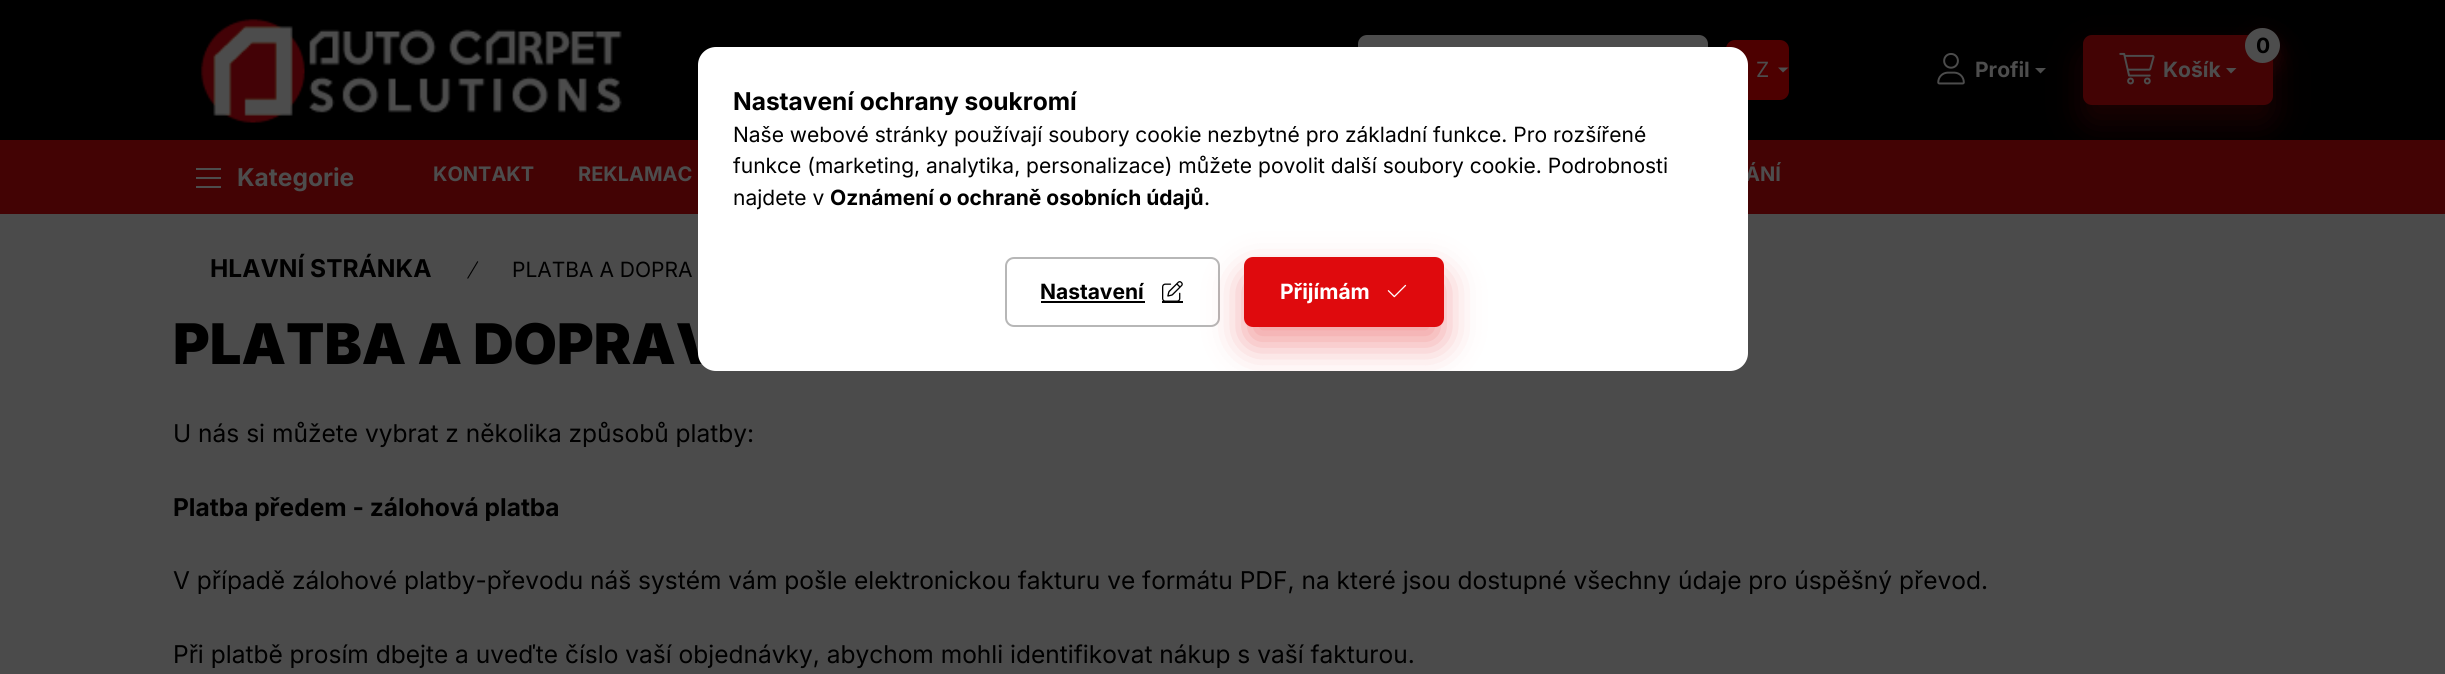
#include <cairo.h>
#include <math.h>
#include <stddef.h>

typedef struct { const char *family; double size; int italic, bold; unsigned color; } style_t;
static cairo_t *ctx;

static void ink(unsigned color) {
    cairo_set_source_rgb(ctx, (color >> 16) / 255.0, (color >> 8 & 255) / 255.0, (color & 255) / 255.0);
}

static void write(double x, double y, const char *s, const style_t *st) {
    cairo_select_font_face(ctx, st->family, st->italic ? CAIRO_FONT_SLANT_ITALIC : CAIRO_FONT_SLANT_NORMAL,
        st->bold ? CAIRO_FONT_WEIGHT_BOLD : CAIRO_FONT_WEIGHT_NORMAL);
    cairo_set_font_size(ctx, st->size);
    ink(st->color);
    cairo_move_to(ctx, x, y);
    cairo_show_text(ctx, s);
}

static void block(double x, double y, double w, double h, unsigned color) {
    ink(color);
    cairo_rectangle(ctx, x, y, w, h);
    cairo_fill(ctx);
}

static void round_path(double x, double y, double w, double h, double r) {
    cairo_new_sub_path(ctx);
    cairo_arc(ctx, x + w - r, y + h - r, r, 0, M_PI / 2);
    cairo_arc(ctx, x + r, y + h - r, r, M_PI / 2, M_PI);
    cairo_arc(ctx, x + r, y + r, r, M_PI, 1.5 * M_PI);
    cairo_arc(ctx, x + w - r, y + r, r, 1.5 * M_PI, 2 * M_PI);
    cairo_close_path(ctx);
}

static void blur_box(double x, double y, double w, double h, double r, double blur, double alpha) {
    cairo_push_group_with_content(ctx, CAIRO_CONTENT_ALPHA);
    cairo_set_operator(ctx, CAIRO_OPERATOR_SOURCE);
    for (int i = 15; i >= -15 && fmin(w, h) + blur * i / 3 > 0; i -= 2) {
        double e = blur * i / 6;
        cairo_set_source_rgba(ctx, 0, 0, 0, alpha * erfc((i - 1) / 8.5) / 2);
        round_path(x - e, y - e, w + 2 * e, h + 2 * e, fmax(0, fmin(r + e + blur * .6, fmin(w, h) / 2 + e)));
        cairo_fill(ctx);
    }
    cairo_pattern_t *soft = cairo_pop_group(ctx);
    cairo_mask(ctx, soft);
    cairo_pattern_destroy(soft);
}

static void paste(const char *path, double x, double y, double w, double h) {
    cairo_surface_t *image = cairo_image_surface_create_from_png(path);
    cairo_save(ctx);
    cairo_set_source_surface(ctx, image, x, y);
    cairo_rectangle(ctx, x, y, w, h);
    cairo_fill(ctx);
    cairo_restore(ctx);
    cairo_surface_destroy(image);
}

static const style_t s1 = {"Inter", 21, 0, 0, 0x4d4d4d};
static const style_t s2 = {"Inter", 21, 0, 1, 0x4d4d4d};
static const style_t s3 = {"Inter", 21, 0, 1, 0x000000};
static const style_t s4 = {"Inter", 24.5, 0, 1, 0x4d4d4d};
static const style_t s5 = {"Inter", 20, 0, 1, 0x4d4d4d};
static const style_t s6 = {"Inter", 24.5, 0, 1, 0x000000};
static const style_t s7 = {"Inter", 21, 0, 0, 0x000000};
static const style_t s8 = {"Inter Black", 56, 0, 0, 0x000000};
static const style_t s9 = {"Inter", 24.5, 0, 0, 0x000000};
static const style_t s10 = {"Inter", 21, 0, 1, 0xffffff};

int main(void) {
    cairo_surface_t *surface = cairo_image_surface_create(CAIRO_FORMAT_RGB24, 2445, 674);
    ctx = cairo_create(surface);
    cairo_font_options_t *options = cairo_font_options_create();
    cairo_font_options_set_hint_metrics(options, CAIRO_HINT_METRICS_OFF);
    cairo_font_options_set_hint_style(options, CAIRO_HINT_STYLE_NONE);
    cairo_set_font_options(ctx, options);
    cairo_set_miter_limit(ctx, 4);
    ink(0x4b4b4b);
    cairo_paint(ctx);
    block(0, 0, 2445, 140, 0x000000);
    paste("pic1.png", 200, 18, 422, 105);
    ink(0x4d4d4d);
    round_path(1358, 35, 350, 70, 9);
    cairo_fill(ctx);
    ink(0x4d0000);
    round_path(1726, 40, 63, 60, 9);
    cairo_fill(ctx);
    write(1756, 77, "Z", &s1);
    cairo_new_path(ctx);
    cairo_move_to(ctx, 1778, 67.5);
    cairo_line_to(ctx, 1788.5, 67.5);
    cairo_line_to(ctx, 1783, 72.5);
    cairo_close_path(ctx);
    cairo_fill(ctx);
    paste("pic2.png", 1937, 53, 28, 32);
    write(1975, 77, "Profil", &s2);
    block(0, 140, 2445, 74, 0x430304);
    ink(0x430304);
    blur_box(2083, 53, 190, 70, 9, 17.5, 0.4);
    ink(0x4d4d4d);
    cairo_new_path(ctx);
    cairo_move_to(ctx, 2035, 68);
    cairo_line_to(ctx, 2046, 68);
    cairo_line_to(ctx, 2040.5, 73.5);
    cairo_close_path(ctx);
    cairo_fill(ctx);
    ink(0x430304);
    round_path(2083, 35, 190, 70, 9);
    cairo_fill(ctx);
    ink(0x430304);
    blur_box(2245, 37, 35, 35, 17.5, 9, 0.4);
    ink(0x4d4d4d);
    cairo_arc(ctx, 2262.5, 45.5, 17.5, 0, 2 * M_PI);
    cairo_fill(ctx);
    write(2256, 53, "0", &s3);
    paste("pic3.png", 2119, 52, 36, 33);
    write(2163, 77, "Košík", &s2);
    cairo_new_path(ctx);
    cairo_move_to(ctx, 2226, 68);
    cairo_line_to(ctx, 2236.5, 68);
    cairo_line_to(ctx, 2231, 73.5);
    cairo_close_path(ctx);
    cairo_fill(ctx);
    block(196, 168, 25, 2, 0x4d4d4d);
    block(196, 177, 25, 2, 0x4d4d4d);
    block(196, 186, 25, 2, 0x4d4d4d);
    write(237, 186, "Kategorie", &s4);
    write(433, 181, "KONTAKT", &s5);
    write(578, 181, "REKLAMAC", &s5);
    write(1745, 181, "ÁNÍ", &s5);
    write(210, 277, "HLAVNÍ STRÁNKA", &s6);
    paste("pic4.png", 467, 261, 12, 18);
    write(512, 277, "PLATBA A DOPRA", &s7);
    write(173, 364, "PLATBA A DOPRAV", &s8);
    write(173, 442, "U nás si můžete vybrat z několika způsobů platby:", &s9);
    write(173, 516, "Platba předem - zálohová platba", &s6);
    write(173, 589, "V případě zálohové platby-převodu náš systém vám pošle elektronickou fakturu ve formátu PDF, na které jsou dostupné všechny údaje pro úspěšný převod.", &s9);
    write(173, 663, "Při platbě prosím dbejte a uveďte číslo vaší objednávky, abychom mohli identifikovat nákup s vaší fakturou.", &s9);
    ink(0xffffff);
    round_path(698, 47, 1050, 324, 18);
    cairo_fill(ctx);
    write(733, 110, "Nastavení ochrany soukromí", &s6);
    write(733, 142, "Naše webové stránky používají soubory cookie nezbytné pro základní funkce. Pro rozšířené", &s7);
    write(733, 173, "funkce (marketing, analytika, personalizace) můžete povolit další soubory cookie. Podrobnosti", &s7);
    write(733, 205, "najdete v", &s7);
    write(830, 205, "Oznámení o ochraně osobních údajů", &s3);
    write(1204, 205, ".", &s7);
    round_path(1006, 258, 213, 68, 8);
    ink(0xb7b7b7);
    cairo_stroke(ctx);
    write(1040, 299, "Nastavení", &s3);
    block(1041, 301, 104, 2, 0x000000);
    paste("pic5.png", 1162, 281, 21, 20);
    block(1162, 301, 21, 2, 0x000000);
    cairo_save(ctx);
    round_path(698, 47, 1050, 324, 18);
    cairo_clip(ctx);
    ink(0xdf0a0d);
    blur_box(1244, 275, 200, 70, 9, 17.5, 0.4);
    cairo_restore(ctx);
    ink(0xdf0a0d);
    round_path(1245, 258, 198, 68, 8);
    cairo_fill_preserve(ctx);
    cairo_stroke(ctx);
    write(1280, 299, "Přijímám", &s10);
    paste("pic6.png", 1387, 284, 20, 14);
    cairo_surface_write_to_png(surface, "screenshot.png");
    cairo_font_options_destroy(options);
    cairo_destroy(ctx);
    cairo_surface_destroy(surface);
    return 0;
}
